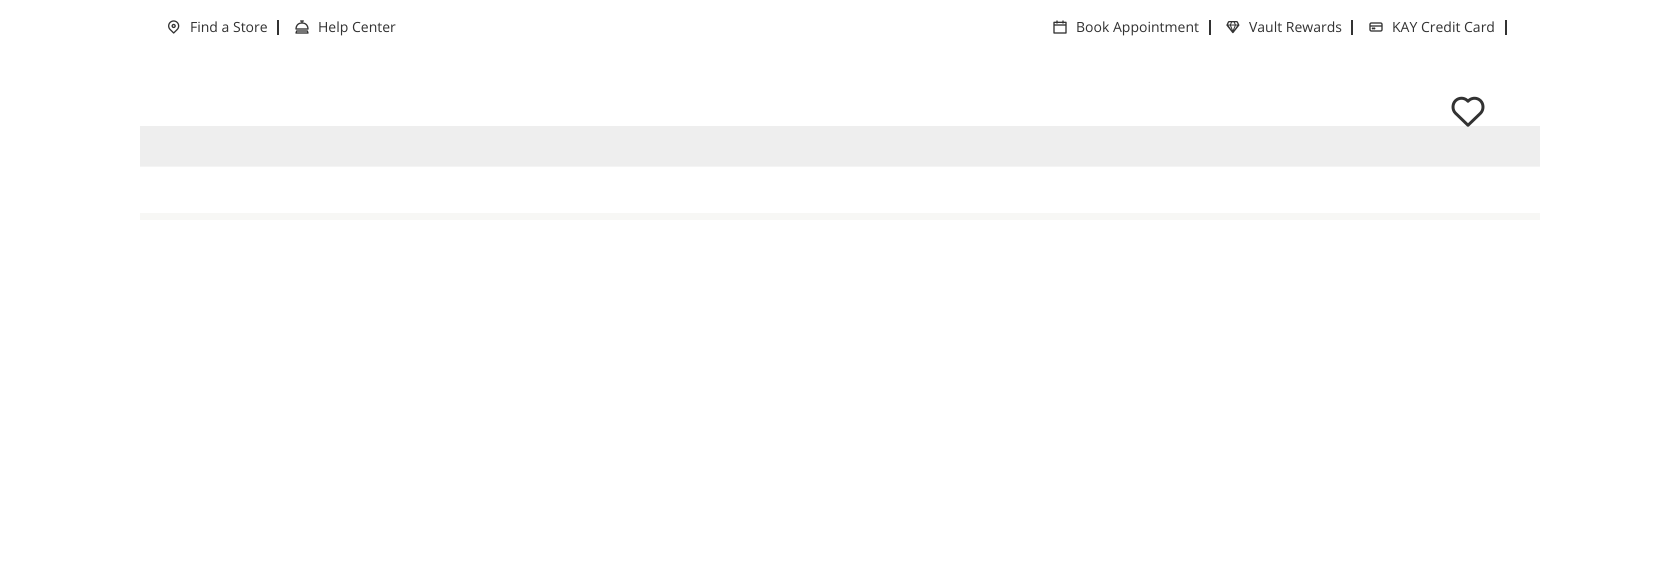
#include <cairo.h>
#include <math.h>
#include <stddef.h>

typedef struct { const char *family; double size; int italic, bold; unsigned color; } style_t;
static cairo_t *ctx;

static void ink(unsigned color) {
    cairo_set_source_rgb(ctx, (color >> 16) / 255.0, (color >> 8 & 255) / 255.0, (color & 255) / 255.0);
}

static void write(double x, double y, const char *s, const style_t *st) {
    cairo_select_font_face(ctx, st->family, st->italic ? CAIRO_FONT_SLANT_ITALIC : CAIRO_FONT_SLANT_NORMAL,
        st->bold ? CAIRO_FONT_WEIGHT_BOLD : CAIRO_FONT_WEIGHT_NORMAL);
    cairo_set_font_size(ctx, st->size);
    ink(st->color);
    cairo_move_to(ctx, x, y);
    cairo_show_text(ctx, s);
}

static void block(double x, double y, double w, double h, unsigned color) {
    ink(color);
    cairo_rectangle(ctx, x, y, w, h);
    cairo_fill(ctx);
}

static void paste(const char *path, double x, double y, double w, double h) {
    cairo_surface_t *image = cairo_image_surface_create_from_png(path);
    cairo_save(ctx);
    cairo_set_source_surface(ctx, image, x, y);
    cairo_rectangle(ctx, x, y, w, h);
    cairo_fill(ctx);
    cairo_restore(ctx);
    cairo_surface_destroy(image);
}

static const style_t s1 = {"Open Sans", 14, 0, 0, 0x323232};

int main(void) {
    cairo_surface_t *surface = cairo_image_surface_create(CAIRO_FORMAT_RGB24, 1680, 562);
    ctx = cairo_create(surface);
    cairo_font_options_t *options = cairo_font_options_create();
    cairo_font_options_set_hint_metrics(options, CAIRO_HINT_METRICS_OFF);
    cairo_font_options_set_hint_style(options, CAIRO_HINT_STYLE_NONE);
    cairo_set_font_options(ctx, options);
    cairo_set_miter_limit(ctx, 4);
    ink(0xffffff);
    cairo_paint(ctx);
    paste("pic1.png", 168, 20, 12, 14);
    write(190, 32, "Find a Store", &s1);
    block(277, 20, 2, 15, 0x323232);
    paste("pic2.png", 295, 20, 14, 14);
    write(318, 32, "Help Center", &s1);
    paste("pic3.png", 1053, 20, 14, 14);
    write(1076, 32, "Book Appointment", &s1);
    block(1209, 20, 2, 15, 0x323232);
    paste("pic4.png", 1226, 21, 14, 13);
    write(1249, 32, "Vault Rewards", &s1);
    block(1351, 20, 2, 15, 0x323232);
    paste("pic5.png", 1369, 22, 14, 10);
    write(1392, 32, "KAY Credit Card", &s1);
    block(1505, 20, 2, 15, 0x323232);
    block(140, 126, 1400, 40, 0xeeeeee);
    paste("pic6.png", 1451, 96, 34, 31);
    block(140, 166, 1400, 1, 0xf4f4f4);
    block(140, 213, 1400, 7, 0xf7f7f5);
    cairo_surface_write_to_png(surface, "screenshot.png");
    cairo_font_options_destroy(options);
    cairo_destroy(ctx);
    cairo_surface_destroy(surface);
    return 0;
}
